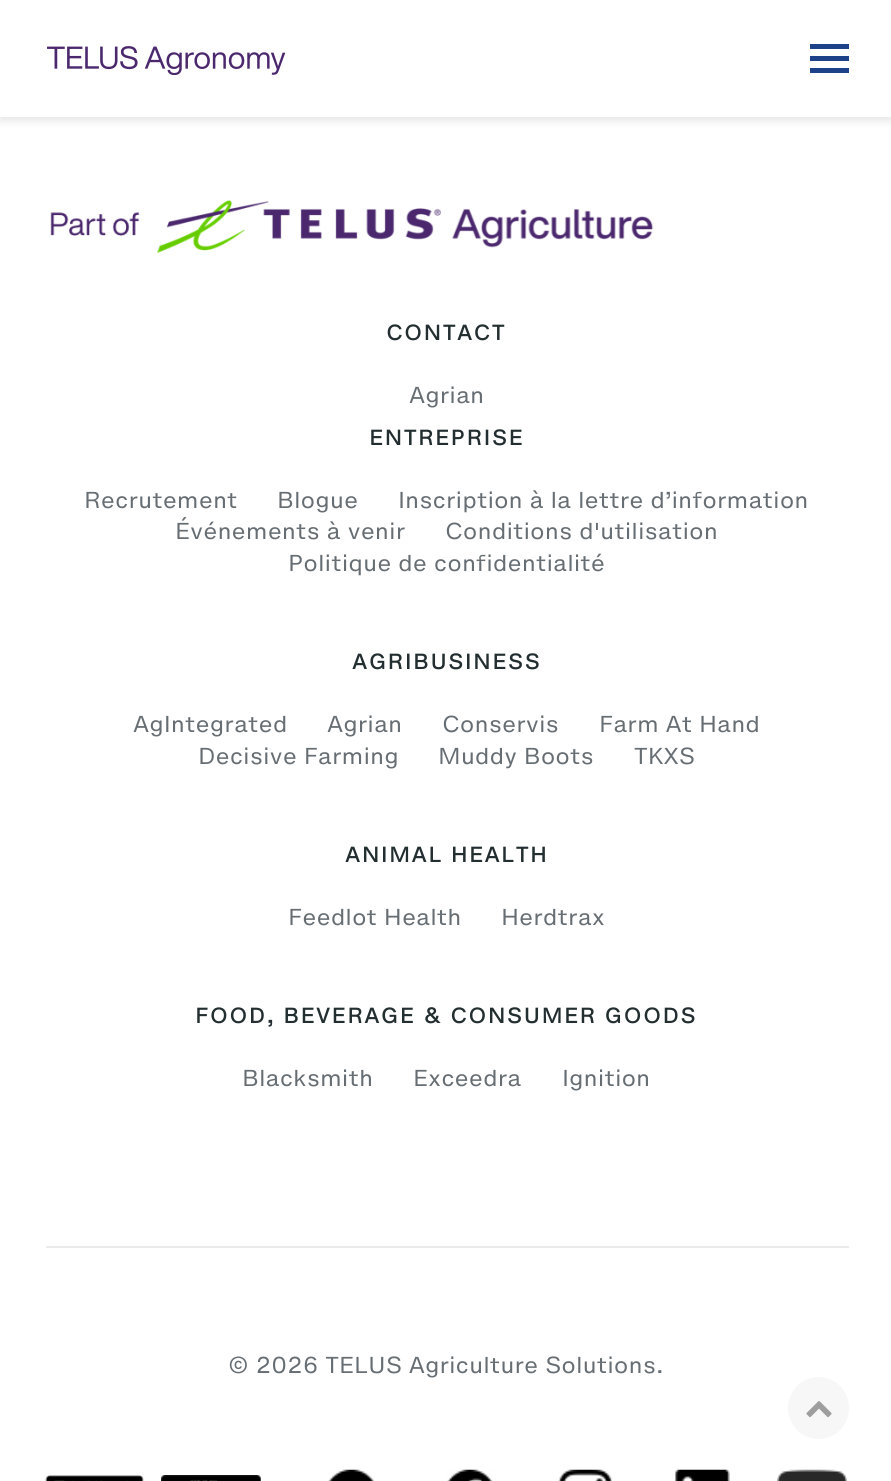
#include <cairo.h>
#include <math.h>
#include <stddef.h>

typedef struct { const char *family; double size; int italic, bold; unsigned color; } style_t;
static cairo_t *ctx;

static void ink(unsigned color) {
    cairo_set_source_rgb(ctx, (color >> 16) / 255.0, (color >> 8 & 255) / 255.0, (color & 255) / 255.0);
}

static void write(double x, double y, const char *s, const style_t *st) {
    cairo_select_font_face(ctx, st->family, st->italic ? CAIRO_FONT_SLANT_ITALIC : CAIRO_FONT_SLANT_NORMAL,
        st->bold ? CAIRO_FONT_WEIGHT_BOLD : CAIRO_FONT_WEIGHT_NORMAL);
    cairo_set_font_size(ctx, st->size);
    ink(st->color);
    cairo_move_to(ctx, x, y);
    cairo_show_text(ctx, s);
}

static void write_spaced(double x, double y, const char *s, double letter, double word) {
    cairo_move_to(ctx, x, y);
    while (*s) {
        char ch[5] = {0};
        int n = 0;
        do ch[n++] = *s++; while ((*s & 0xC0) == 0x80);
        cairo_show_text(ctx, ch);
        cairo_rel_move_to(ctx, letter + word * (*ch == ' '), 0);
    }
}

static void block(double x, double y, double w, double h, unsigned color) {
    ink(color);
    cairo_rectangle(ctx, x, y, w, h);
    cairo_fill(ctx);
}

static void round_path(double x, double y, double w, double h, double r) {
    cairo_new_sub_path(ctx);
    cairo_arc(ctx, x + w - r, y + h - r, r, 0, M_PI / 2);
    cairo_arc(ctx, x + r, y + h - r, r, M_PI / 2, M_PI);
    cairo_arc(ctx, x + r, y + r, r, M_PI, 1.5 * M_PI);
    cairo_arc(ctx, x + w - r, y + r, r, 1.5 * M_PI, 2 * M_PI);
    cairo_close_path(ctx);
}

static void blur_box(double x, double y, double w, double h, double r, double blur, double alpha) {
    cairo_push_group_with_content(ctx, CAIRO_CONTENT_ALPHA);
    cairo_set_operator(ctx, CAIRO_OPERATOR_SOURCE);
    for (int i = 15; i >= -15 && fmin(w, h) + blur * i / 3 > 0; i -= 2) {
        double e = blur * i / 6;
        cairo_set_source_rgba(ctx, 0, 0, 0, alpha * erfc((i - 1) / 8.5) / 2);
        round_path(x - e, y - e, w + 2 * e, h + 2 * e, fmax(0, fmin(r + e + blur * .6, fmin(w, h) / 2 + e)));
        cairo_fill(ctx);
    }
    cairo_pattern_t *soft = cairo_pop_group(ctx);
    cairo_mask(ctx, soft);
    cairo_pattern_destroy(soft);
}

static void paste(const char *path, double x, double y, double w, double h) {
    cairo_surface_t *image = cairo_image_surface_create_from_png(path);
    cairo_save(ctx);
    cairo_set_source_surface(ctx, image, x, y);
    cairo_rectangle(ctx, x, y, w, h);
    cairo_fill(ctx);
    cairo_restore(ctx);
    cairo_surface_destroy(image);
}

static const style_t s1 = {"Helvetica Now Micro", 21, 0, 0, 0x676e73};

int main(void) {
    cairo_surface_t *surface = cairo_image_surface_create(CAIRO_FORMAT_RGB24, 891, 1481);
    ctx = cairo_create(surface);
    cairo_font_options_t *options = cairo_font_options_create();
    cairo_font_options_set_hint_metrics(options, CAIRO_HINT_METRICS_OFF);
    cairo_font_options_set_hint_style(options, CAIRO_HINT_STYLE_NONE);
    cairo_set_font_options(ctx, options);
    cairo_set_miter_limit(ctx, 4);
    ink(0xffffff);
    cairo_paint(ctx);
    ink(0x000000);
    blur_box(0, 4, 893, 117, 0, 4.5, 0.1);
    block(0, 0, 891, 117, 0xffffff);
    paste("pic1.png", 47, 46, 238, 29);
    block(810, 56, 39, 5, 0x1d428a);
    block(810, 44, 39, 5, 0x1d428a);
    block(810, 68, 39, 5, 0x1d428a);
    paste("pic2.png", 50, 200, 604, 53);
    cairo_select_font_face(ctx, "Helvetica Now Micro", CAIRO_FONT_SLANT_NORMAL, CAIRO_FONT_WEIGHT_BOLD);
    cairo_set_font_size(ctx, 19.25);
    ink(0x232e30);
    write_spaced(386, 340, "CONTACT", 1.75, 0);
    write(409, 403, "Agrian", &s1);
    cairo_select_font_face(ctx, "Helvetica Now Micro", CAIRO_FONT_SLANT_NORMAL, CAIRO_FONT_WEIGHT_BOLD);
    cairo_set_font_size(ctx, 19.25);
    ink(0x232e30);
    write_spaced(369, 445, "ENTREPRISE", 1.75, 0);
    write(84, 508, "Recrutement", &s1);
    write(277, 508, "Blogue", &s1);
    write(398, 508, "Inscription à la lettre d’information", &s1);
    write(175, 539, "Événements à venir", &s1);
    write(445, 539, "Conditions d'utilisation", &s1);
    write(288, 571, "Politique de confidentialité", &s1);
    cairo_select_font_face(ctx, "Helvetica Now Micro", CAIRO_FONT_SLANT_NORMAL, CAIRO_FONT_WEIGHT_BOLD);
    cairo_set_font_size(ctx, 19.25);
    ink(0x232e30);
    write_spaced(352, 669, "AGRIBUSINESS", 1.75, 0);
    write(133, 732, "AgIntegrated", &s1);
    write(327, 732, "Agrian", &s1);
    write(442, 732, "Conservis", &s1);
    write(599, 732, "Farm At Hand", &s1);
    write(198, 764, "Decisive Farming", &s1);
    write(438, 764, "Muddy Boots", &s1);
    write(634, 764, "TKXS", &s1);
    cairo_select_font_face(ctx, "Helvetica Now Micro", CAIRO_FONT_SLANT_NORMAL, CAIRO_FONT_WEIGHT_BOLD);
    cairo_set_font_size(ctx, 19.25);
    ink(0x232e30);
    write_spaced(345, 862, "ANIMAL HEALTH", 1.75, 0);
    write(288, 925, "Feedlot Health", &s1);
    write(501, 925, "Herdtrax", &s1);
    cairo_select_font_face(ctx, "Helvetica Now Micro", CAIRO_FONT_SLANT_NORMAL, CAIRO_FONT_WEIGHT_BOLD);
    cairo_set_font_size(ctx, 19.25);
    ink(0x232e30);
    write_spaced(195, 1023, "FOOD, BEVERAGE & CONSUMER GOODS", 1.75, 0);
    write(242, 1086, "Blacksmith", &s1);
    write(413, 1086, "Exceedra", &s1);
    write(562, 1086, "Ignition", &s1);
    block(46, 1246, 803, 2, 0xebebeb);
    write(228, 1373, "© 2026 TELUS Agriculture Solutions.", &s1);
    paste("pic3.png", 45, 1475, 99, 6);
    paste("pic4.png", 161, 1475, 100, 6);
    paste("pic5.png", 328, 1469, 47, 12);
    paste("pic6.png", 447, 1469, 46, 12);
    paste("pic7.png", 558, 1469, 55, 12);
    paste("pic8.png", 675, 1469, 55, 12);
    paste("pic9.png", 777, 1469, 70, 12);
    ink(0xf7f7f7);
    round_path(788, 1377, 61, 62, 30.5);
    cairo_fill(ctx);
    paste("pic10.png", 806, 1401, 26, 17);
    cairo_surface_write_to_png(surface, "screenshot.png");
    cairo_font_options_destroy(options);
    cairo_destroy(ctx);
    cairo_surface_destroy(surface);
    return 0;
}
